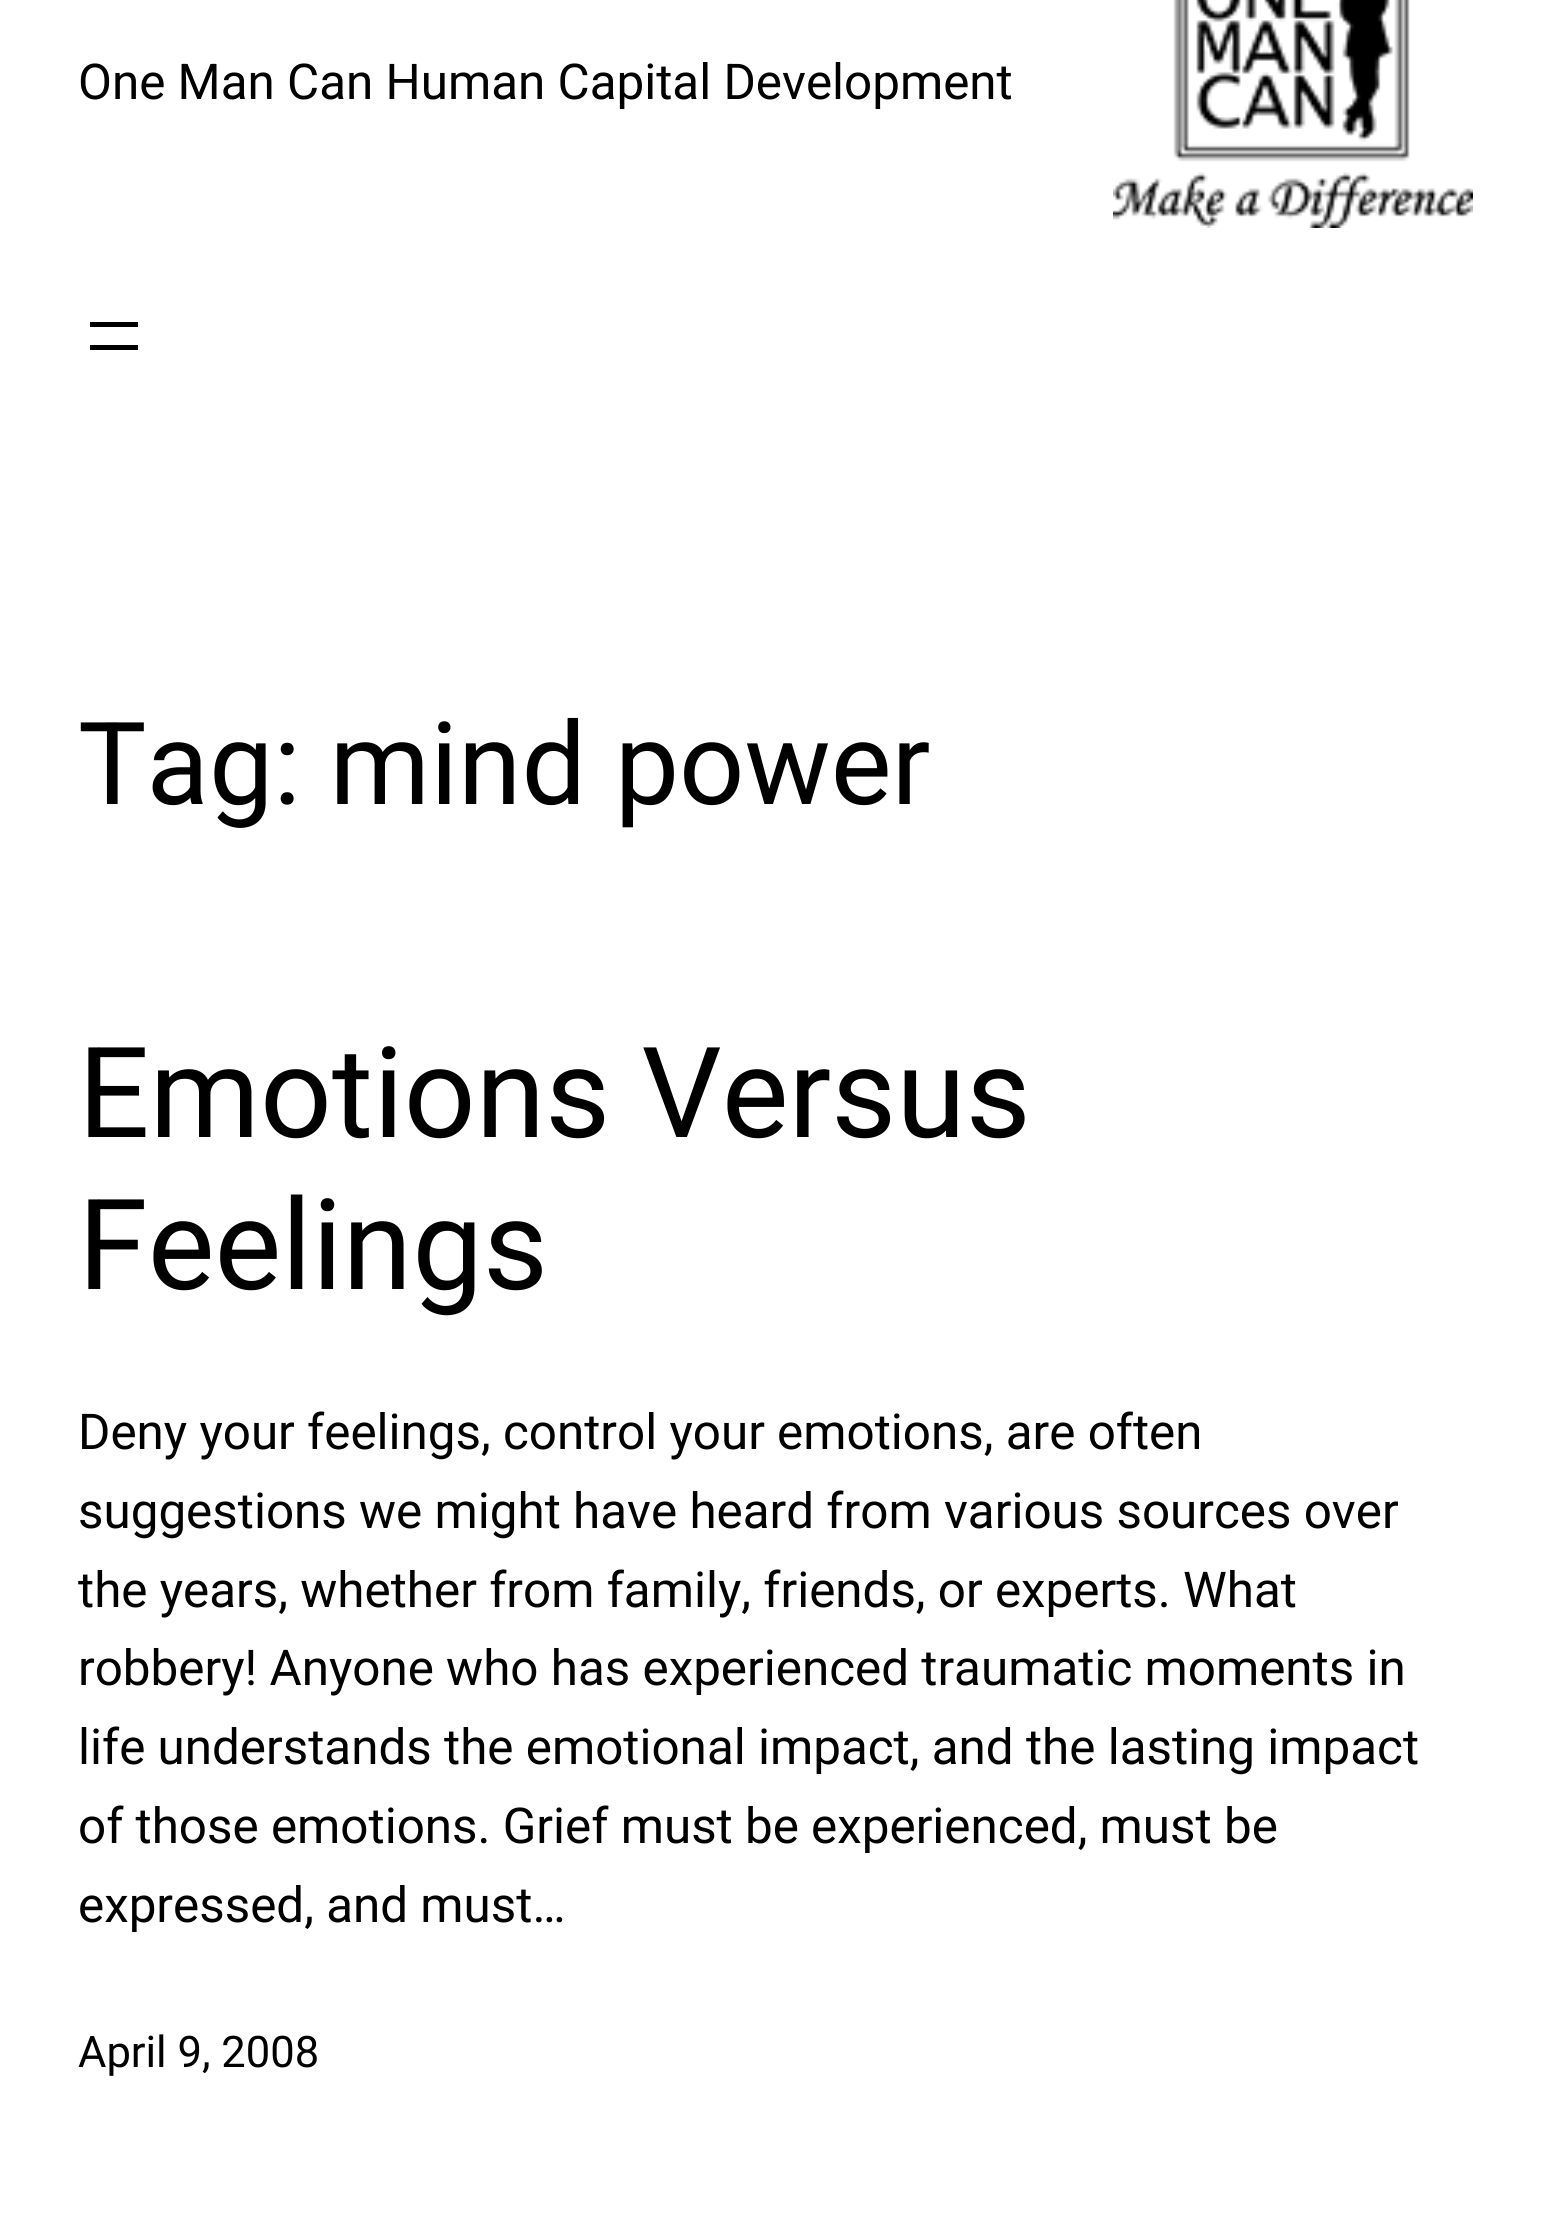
#include <cairo.h>
#include <math.h>
#include <stddef.h>

typedef struct { const char *family; double size; int italic, bold; unsigned color; } style_t;
static cairo_t *ctx;

static void ink(unsigned color) {
    cairo_set_source_rgb(ctx, (color >> 16) / 255.0, (color >> 8 & 255) / 255.0, (color & 255) / 255.0);
}

static void write(double x, double y, const char *s, const style_t *st) {
    cairo_select_font_face(ctx, st->family, st->italic ? CAIRO_FONT_SLANT_ITALIC : CAIRO_FONT_SLANT_NORMAL,
        st->bold ? CAIRO_FONT_WEIGHT_BOLD : CAIRO_FONT_WEIGHT_NORMAL);
    cairo_set_font_size(ctx, st->size);
    ink(st->color);
    cairo_move_to(ctx, x, y);
    cairo_show_text(ctx, s);
}

static void block(double x, double y, double w, double h, unsigned color) {
    ink(color);
    cairo_rectangle(ctx, x, y, w, h);
    cairo_fill(ctx);
}

static void paste(const char *path, double x, double y, double w, double h) {
    cairo_surface_t *image = cairo_image_surface_create_from_png(path);
    cairo_save(ctx);
    cairo_set_source_surface(ctx, image, x, y);
    cairo_rectangle(ctx, x, y, w, h);
    cairo_fill(ctx);
    cairo_restore(ctx);
    cairo_surface_destroy(image);
}

static const style_t s1 = {"Roboto", 49.35, 0, 0, 0x000000};
static const style_t s2 = {"Roboto", 114.75, 0, 0, 0x000000};
static const style_t s3 = {"Roboto", 126, 0, 0, 0x000000};
static const style_t s4 = {"Roboto", 43.5, 0, 0, 0x000000};

int main(void) {
    cairo_surface_t *surface = cairo_image_surface_create(CAIRO_FORMAT_RGB24, 1549, 2229);
    ctx = cairo_create(surface);
    cairo_font_options_t *options = cairo_font_options_create();
    cairo_font_options_set_hint_metrics(options, CAIRO_HINT_METRICS_OFF);
    cairo_font_options_set_hint_style(options, CAIRO_HINT_STYLE_NONE);
    cairo_set_font_options(ctx, options);
    cairo_set_miter_limit(ctx, 4);
    ink(0xffffff);
    cairo_paint(ctx);
    write(78, 99, "One Man Can Human Capital Development", &s1);
    paste("pic1.png", 1113, 0, 360, 228);
    block(90, 322, 48, 5, 0x000000);
    block(90, 345, 48, 5, 0x000000);
    write(78, 804, "Tag: mind power", &s2);
    write(78, 1137, "Emotions Versus", &s3);
    write(78, 1289, "Feelings", &s3);
    write(78, 1449, "Deny your feelings, control your emotions, are often", &s1);
    write(78, 1528, "suggestions we might have heard from various sources over", &s1);
    write(78, 1607, "the years, whether from family, friends, or experts. What", &s1);
    write(78, 1685, "robbery! Anyone who has experienced traumatic moments in", &s1);
    write(78, 1764, "life understands the emotional impact, and the lasting impact", &s1);
    write(78, 1843, "of those emotions. Grief must be experienced, must be", &s1);
    write(78, 1922, "expressed, and must…", &s1);
    write(78, 2067, "April 9, 2008", &s4);
    cairo_surface_write_to_png(surface, "screenshot.png");
    cairo_font_options_destroy(options);
    cairo_destroy(ctx);
    cairo_surface_destroy(surface);
    return 0;
}
